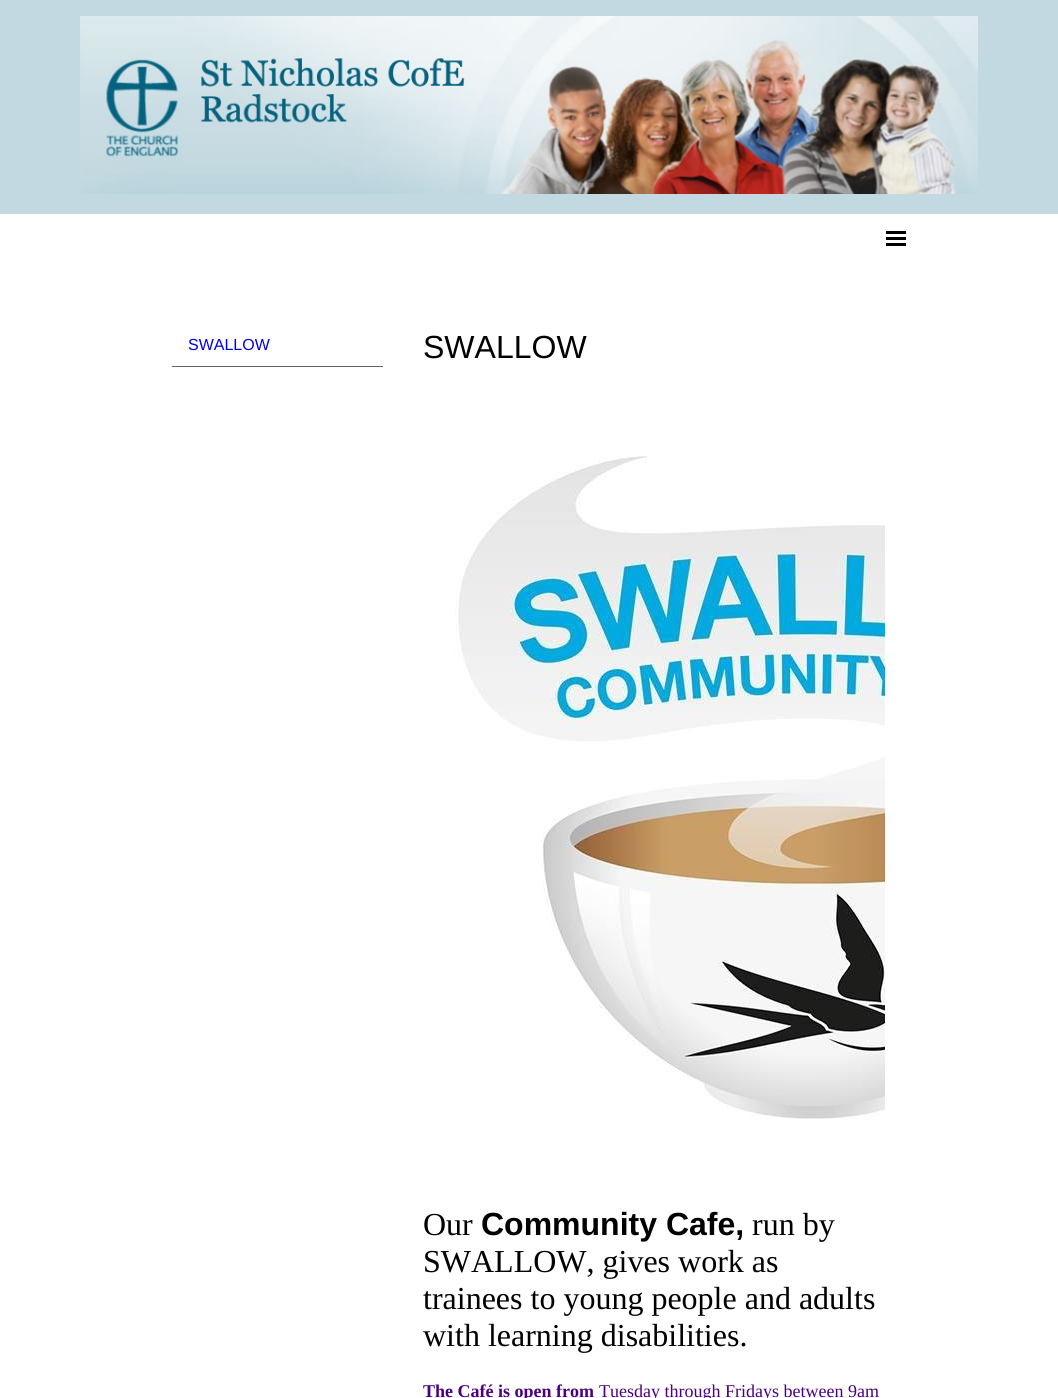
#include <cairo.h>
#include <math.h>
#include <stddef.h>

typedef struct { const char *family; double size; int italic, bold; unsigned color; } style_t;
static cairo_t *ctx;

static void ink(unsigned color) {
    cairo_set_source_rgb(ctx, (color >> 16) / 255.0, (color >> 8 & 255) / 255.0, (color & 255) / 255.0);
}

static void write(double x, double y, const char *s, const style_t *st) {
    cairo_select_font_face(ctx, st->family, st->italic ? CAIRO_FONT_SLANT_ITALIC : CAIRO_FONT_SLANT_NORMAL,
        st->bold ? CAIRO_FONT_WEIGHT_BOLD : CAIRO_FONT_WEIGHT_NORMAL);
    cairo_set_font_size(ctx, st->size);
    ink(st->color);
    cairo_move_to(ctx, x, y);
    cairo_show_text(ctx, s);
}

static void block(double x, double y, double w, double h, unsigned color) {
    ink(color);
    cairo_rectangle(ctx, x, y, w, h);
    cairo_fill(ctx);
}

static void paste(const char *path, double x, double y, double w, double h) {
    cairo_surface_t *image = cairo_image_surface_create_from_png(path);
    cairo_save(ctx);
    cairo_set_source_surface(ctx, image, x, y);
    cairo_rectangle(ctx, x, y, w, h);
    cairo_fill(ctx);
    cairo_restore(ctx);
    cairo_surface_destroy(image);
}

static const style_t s1 = {"Liberation Sans", 16, 0, 0, 0x0000ee};
static const style_t s2 = {"Liberation Sans", 32, 0, 0, 0x000000};
static const style_t s3 = {"Liberation Serif", 32, 0, 0, 0x000000};
static const style_t s4 = {"Liberation Sans", 32, 0, 1, 0x000000};
static const style_t s5 = {"Liberation Serif", 18, 0, 1, 0x4b0082};
static const style_t s6 = {"Liberation Serif", 18, 0, 0, 0x4b0082};

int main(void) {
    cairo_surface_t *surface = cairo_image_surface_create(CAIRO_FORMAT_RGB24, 1058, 1398);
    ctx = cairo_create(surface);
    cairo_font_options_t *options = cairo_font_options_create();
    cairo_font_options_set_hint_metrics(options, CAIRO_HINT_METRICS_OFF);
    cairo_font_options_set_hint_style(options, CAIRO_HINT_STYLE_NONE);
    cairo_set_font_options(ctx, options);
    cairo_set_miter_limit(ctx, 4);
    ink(0xffffff);
    cairo_paint(ctx);
    block(0, 0, 1058, 214, 0xc2d9e1);
    paste("pic1.png", 80, 16, 898, 178);
    block(886, 231, 20, 3, 0x000000);
    block(886, 237, 20, 3, 0x000000);
    block(886, 243, 20, 3, 0x000000);
    block(172, 366, 211, 1, 0x626262);
    write(188, 350, "SWALLOW", &s1);
    write(423, 358, "SWALLOW", &s2);
    paste("pic2.png", 455, 456, 430, 663);
    write(423, 1235, "Our", &s3);
    write(481, 1235, "Community Cafe,", &s4);
    write(752, 1235, "run by", &s3);
    write(423, 1272, "SWALLOW, gives work as", &s3);
    write(423, 1309, "trainees to young people and adults", &s3);
    write(423, 1346, "with learning disabilities.", &s3);
    write(423, 1397, "The Café is open from", &s5);
    write(599, 1397, "Tuesday through Fridays between 9am", &s6);
    cairo_surface_write_to_png(surface, "screenshot.png");
    cairo_font_options_destroy(options);
    cairo_destroy(ctx);
    cairo_surface_destroy(surface);
    return 0;
}
